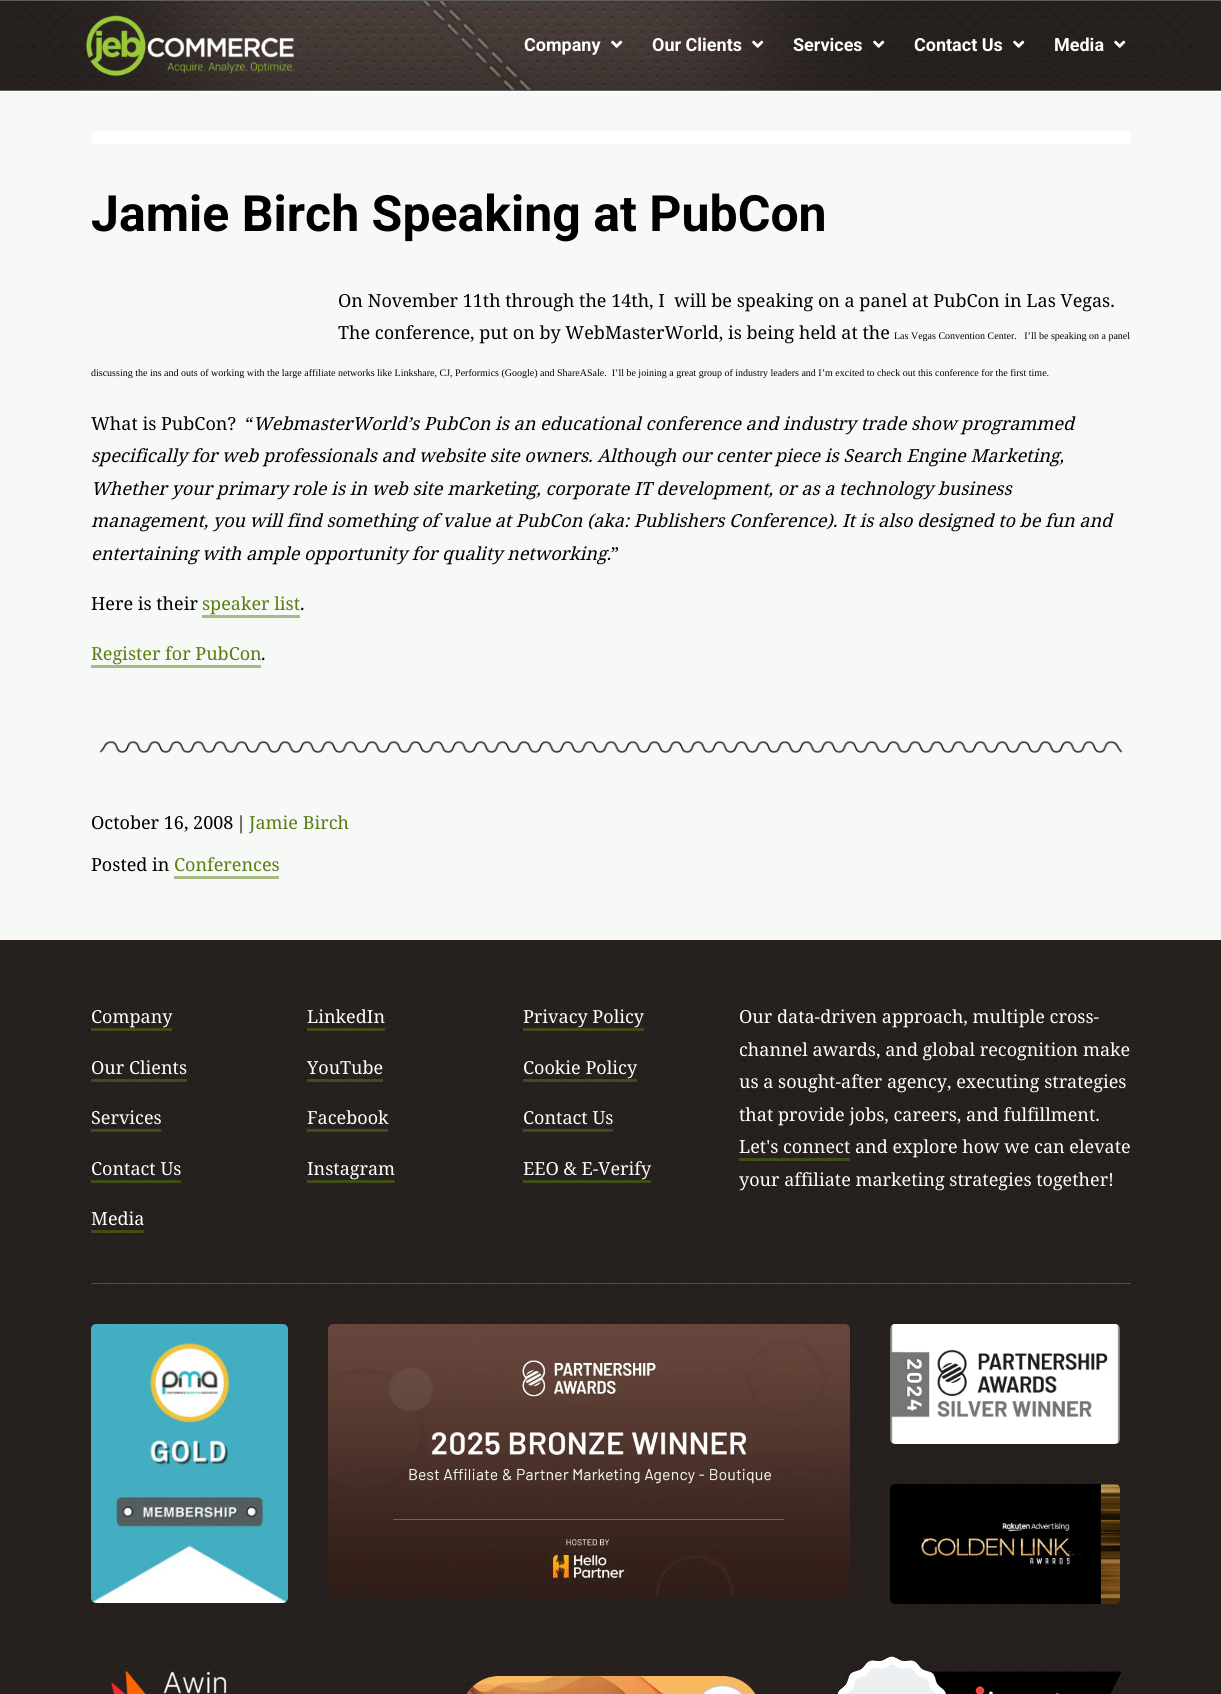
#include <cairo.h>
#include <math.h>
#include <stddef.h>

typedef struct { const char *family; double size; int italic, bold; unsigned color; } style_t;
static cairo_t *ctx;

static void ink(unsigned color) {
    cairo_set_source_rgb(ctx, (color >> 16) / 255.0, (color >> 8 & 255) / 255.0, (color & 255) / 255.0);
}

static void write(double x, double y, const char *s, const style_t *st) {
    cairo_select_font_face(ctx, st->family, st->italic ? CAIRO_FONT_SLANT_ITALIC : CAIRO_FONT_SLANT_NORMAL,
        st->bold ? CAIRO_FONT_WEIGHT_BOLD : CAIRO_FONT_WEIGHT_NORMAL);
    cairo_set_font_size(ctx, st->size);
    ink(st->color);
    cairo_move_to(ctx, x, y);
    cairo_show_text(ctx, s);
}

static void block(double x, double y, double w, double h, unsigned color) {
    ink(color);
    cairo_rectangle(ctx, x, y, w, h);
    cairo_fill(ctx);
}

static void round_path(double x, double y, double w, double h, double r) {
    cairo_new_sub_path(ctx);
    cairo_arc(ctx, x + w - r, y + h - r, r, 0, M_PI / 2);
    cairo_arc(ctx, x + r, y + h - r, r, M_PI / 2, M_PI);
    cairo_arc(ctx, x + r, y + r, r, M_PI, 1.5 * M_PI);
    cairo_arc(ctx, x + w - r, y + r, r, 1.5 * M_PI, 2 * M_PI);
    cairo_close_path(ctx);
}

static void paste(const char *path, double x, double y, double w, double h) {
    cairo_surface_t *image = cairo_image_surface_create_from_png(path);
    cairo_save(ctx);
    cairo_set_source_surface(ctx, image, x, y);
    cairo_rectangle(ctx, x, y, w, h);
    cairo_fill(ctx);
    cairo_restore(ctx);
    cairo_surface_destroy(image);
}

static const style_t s1 = {"Roboto", 18, 0, 1, 0xffffff};
static const style_t s2 = {"Roboto", 50, 0, 1, 0x000000};
static const style_t s3 = {"Noto Serif", 18, 0, 0, 0x000000};
static const style_t s4 = {"Liberation Serif", 10, 0, 0, 0x000000};
static const style_t s5 = {"Noto Serif", 18, 1, 0, 0x000000};
static const style_t s6 = {"Noto Serif", 18, 0, 0, 0x597c13};
static const style_t s7 = {"Noto Serif", 18, 0, 0, 0xffffff};

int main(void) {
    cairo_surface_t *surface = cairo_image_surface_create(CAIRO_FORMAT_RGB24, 1221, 1694);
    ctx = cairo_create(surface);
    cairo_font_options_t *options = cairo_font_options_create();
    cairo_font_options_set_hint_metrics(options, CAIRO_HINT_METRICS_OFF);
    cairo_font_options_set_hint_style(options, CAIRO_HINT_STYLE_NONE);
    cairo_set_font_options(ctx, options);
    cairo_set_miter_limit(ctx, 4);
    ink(0xf7f9f7);
    cairo_paint(ctx);
    block(0, 91, 1221, 1, 0xffffff);
    block(0, 1, 1221, 89, 0x26201e);
    paste("pic1.png", 17, 1, 1182, 89);
    block(0, 0, 1221, 1, 0x5e5e5e);
    block(0, 90, 1221, 1, 0x5e5e5e);
    paste("pic2.png", 86, 15, 208, 62);
    write(524, 51, "Company", &s1);
    paste("pic3.png", 611, 40, 12, 8);
    write(652, 51, "Our Clients", &s1);
    paste("pic4.png", 752, 40, 12, 8);
    write(793, 51, "Services", &s1);
    paste("pic5.png", 873, 40, 12, 8);
    write(914, 51, "Contact Us", &s1);
    paste("pic6.png", 1013, 40, 12, 8);
    write(1054, 51, "Media", &s1);
    paste("pic7.png", 1114, 40, 12, 8);
    round_path(91, 131, 1040, 13, 5);
    cairo_fill(ctx);
    write(91, 231, "Jamie Birch Speaking at PubCon", &s2);
    write(338, 307, "On November 11th through the 14th, I  will be speaking on a panel at PubCon in Las Vegas.", &s3);
    write(338, 339, "The conference, put on by WebMasterWorld, is being held at the", &s3);
    write(894, 339, "Las Vegas Convention Center.   I’ll be speaking on a panel", &s4);
    write(91, 376, "discussing the ins and outs of working with the large affiliate networks like Linkshare, CJ, Performics (Google) and ShareASale.  I’ll be joining a great group of industry leaders and I’m excited to check out this conference for the first time.", &s4);
    write(91, 430, "What is PubCon?  “", &s3);
    write(253, 430, "WebmasterWorld’s PubCon is an educational conference and industry trade show programmed", &s5);
    write(91, 462, "specifically for web professionals and website site owners. Although our center piece is Search Engine Marketing,", &s5);
    write(91, 495, "Whether your primary role is in web site marketing, corporate IT development, or as a technology business", &s5);
    write(91, 527, "management, you will find something of value at PubCon (aka: Publishers Conference). It is also designed to be fun and", &s5);
    write(91, 560, "entertaining with ample opportunity for quality networking.", &s5);
    write(611, 560, "”", &s3);
    write(91, 610, "Here is their", &s3);
    write(202, 610, "speaker list", &s6);
    block(202, 615, 98, 3, 0xa8bb85);
    write(300, 610, ".", &s3);
    write(91, 660, "Register for PubCon", &s6);
    block(91, 665, 170, 3, 0xa8bb85);
    write(261, 660, ".", &s3);
    paste("pic8.png", 99, 741, 1024, 12);
    write(91, 829, "October 16, 2008", &s3);
    write(236, 829, "|", &s3);
    write(249, 829, "Jamie Birch", &s6);
    write(91, 871, "Posted in", &s3);
    write(174, 871, "Conferences", &s6);
    block(174, 876, 105, 3, 0xa8bb85);
    paste("pic9.png", 0, 940, 1221, 754);
    write(91, 1023, "Company", &s7);
    cairo_set_source_rgba(ctx, 0.349, 0.486, 0.075, 0.5);
    cairo_rectangle(ctx, 91, 1028, 81, 3);
    cairo_fill(ctx);
    write(91, 1074, "Our Clients", &s7);
    cairo_set_source_rgba(ctx, 0.349, 0.486, 0.075, 0.5);
    cairo_rectangle(ctx, 91, 1079, 96, 3);
    cairo_fill(ctx);
    write(91, 1124, "Services", &s7);
    cairo_set_source_rgba(ctx, 0.349, 0.486, 0.075, 0.5);
    cairo_rectangle(ctx, 91, 1129, 70, 3);
    cairo_fill(ctx);
    write(91, 1175, "Contact Us", &s7);
    cairo_set_source_rgba(ctx, 0.349, 0.486, 0.075, 0.5);
    cairo_rectangle(ctx, 91, 1180, 90, 3);
    cairo_fill(ctx);
    write(91, 1225, "Media", &s7);
    cairo_set_source_rgba(ctx, 0.349, 0.486, 0.075, 0.5);
    cairo_rectangle(ctx, 91, 1230, 53, 3);
    cairo_fill(ctx);
    write(307, 1023, "LinkedIn", &s7);
    cairo_set_source_rgba(ctx, 0.349, 0.486, 0.075, 0.5);
    cairo_rectangle(ctx, 307, 1028, 78, 3);
    cairo_fill(ctx);
    write(307, 1074, "YouTube", &s7);
    cairo_set_source_rgba(ctx, 0.349, 0.486, 0.075, 0.5);
    cairo_rectangle(ctx, 307, 1079, 76, 3);
    cairo_fill(ctx);
    write(307, 1124, "Facebook", &s7);
    cairo_set_source_rgba(ctx, 0.349, 0.486, 0.075, 0.5);
    cairo_rectangle(ctx, 307, 1129, 81, 3);
    cairo_fill(ctx);
    write(307, 1175, "Instagram", &s7);
    cairo_set_source_rgba(ctx, 0.349, 0.486, 0.075, 0.5);
    cairo_rectangle(ctx, 307, 1180, 88, 3);
    cairo_fill(ctx);
    write(523, 1023, "Privacy Policy", &s7);
    cairo_set_source_rgba(ctx, 0.349, 0.486, 0.075, 0.5);
    cairo_rectangle(ctx, 523, 1028, 121, 3);
    cairo_fill(ctx);
    write(523, 1074, "Cookie Policy", &s7);
    cairo_set_source_rgba(ctx, 0.349, 0.486, 0.075, 0.5);
    cairo_rectangle(ctx, 523, 1079, 114, 3);
    cairo_fill(ctx);
    write(523, 1124, "Contact Us", &s7);
    cairo_set_source_rgba(ctx, 0.349, 0.486, 0.075, 0.5);
    cairo_rectangle(ctx, 523, 1129, 90, 3);
    cairo_fill(ctx);
    write(523, 1175, "EEO & E-Verify", &s7);
    cairo_set_source_rgba(ctx, 0.349, 0.486, 0.075, 0.5);
    cairo_rectangle(ctx, 523, 1180, 128, 3);
    cairo_fill(ctx);
    write(739, 1023, "Our data-driven approach, multiple cross-", &s7);
    write(739, 1056, "channel awards, and global recognition make", &s7);
    write(739, 1088, "us a sought-after agency, executing strategies", &s7);
    write(739, 1121, "that provide jobs, careers, and fulfillment.", &s7);
    write(739, 1153, "Let's connect and explore how we can elevate", &s7);
    cairo_set_source_rgba(ctx, 0.349, 0.486, 0.075, 0.5);
    cairo_rectangle(ctx, 739, 1158, 111, 3);
    cairo_fill(ctx);
    write(739, 1186, "your affiliate marketing strategies together!", &s7);
    block(91, 1283, 1040, 1, 0x4f4f4f);
    paste("pic10.png", 91, 1324, 197, 279);
    paste("pic11.png", 328, 1324, 522, 273);
    paste("pic12.png", 890, 1324, 230, 120);
    paste("pic13.png", 890, 1484, 230, 120);
    paste("pic14.png", 111, 1671, 116, 23);
    paste("pic15.png", 466, 1676, 290, 18);
    paste("pic16.png", 837, 1656, 284, 38);
    cairo_surface_write_to_png(surface, "screenshot.png");
    cairo_font_options_destroy(options);
    cairo_destroy(ctx);
    cairo_surface_destroy(surface);
    return 0;
}
